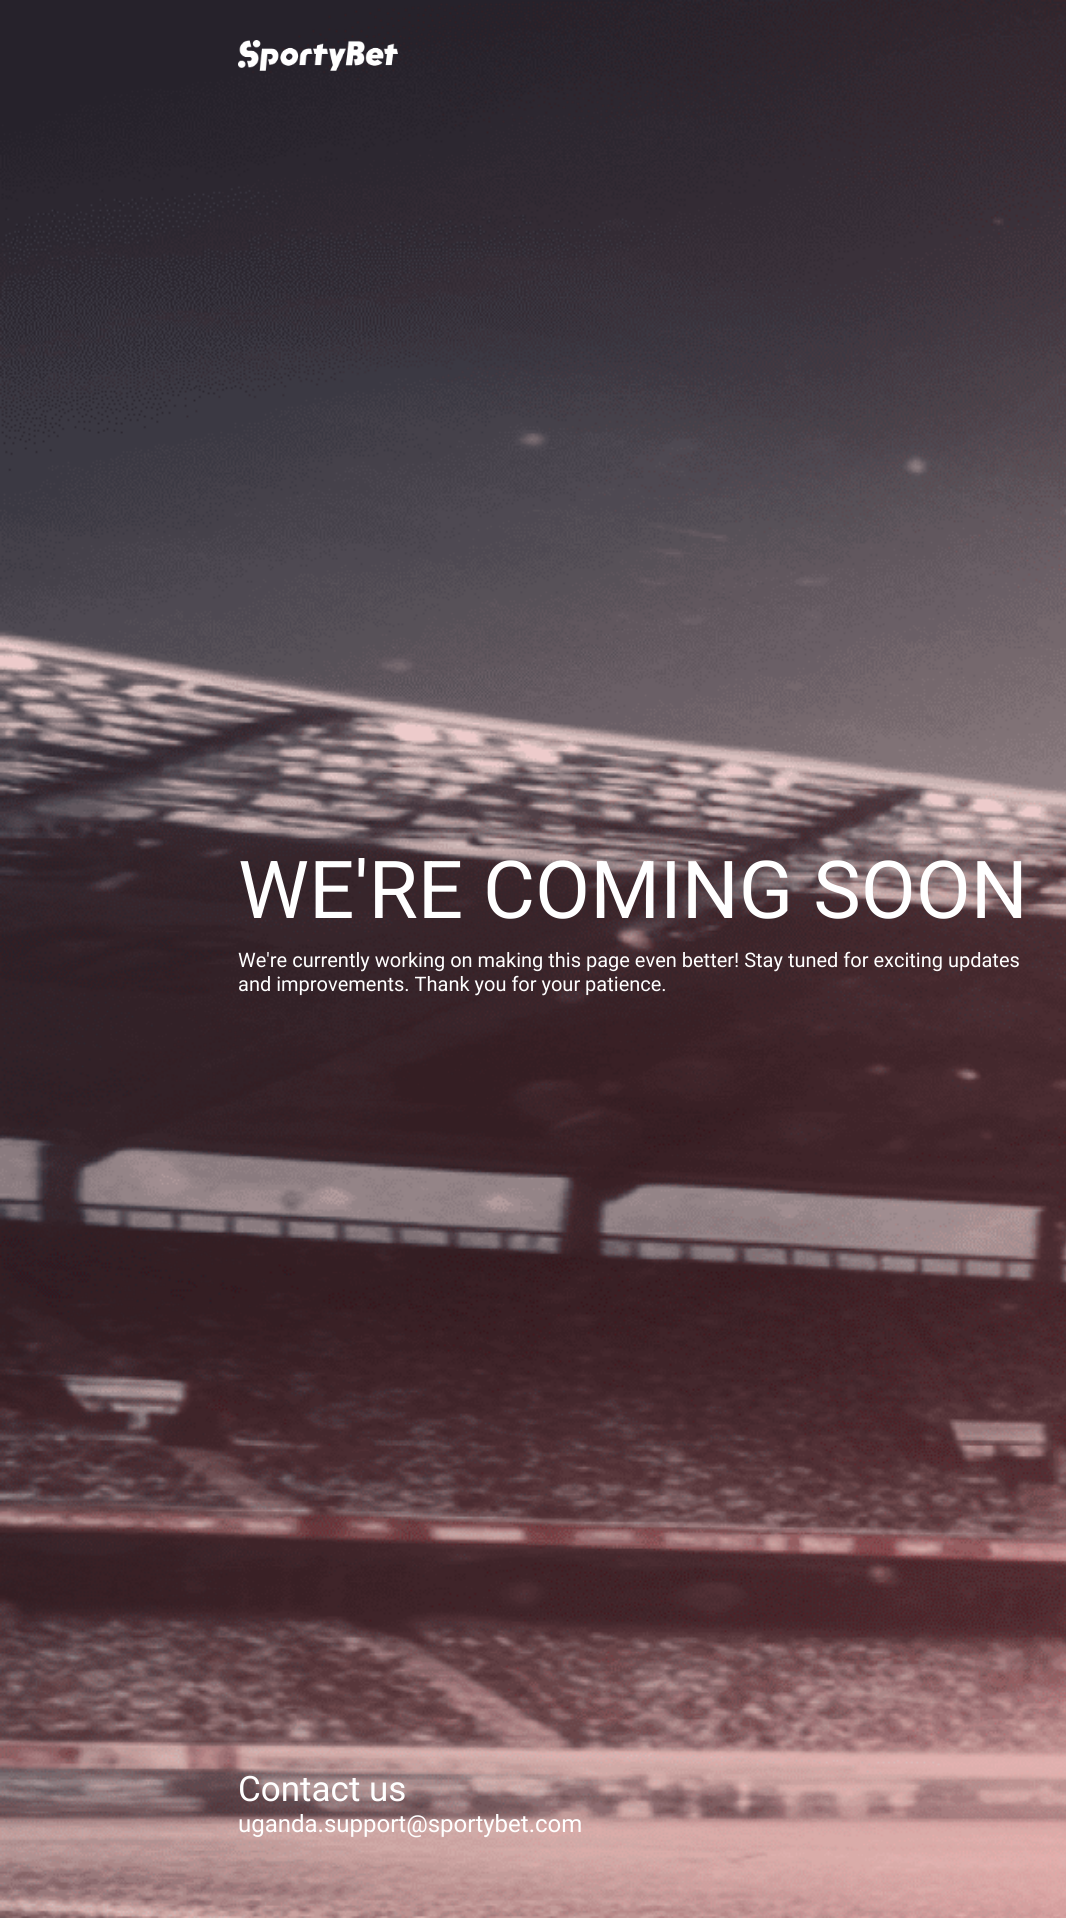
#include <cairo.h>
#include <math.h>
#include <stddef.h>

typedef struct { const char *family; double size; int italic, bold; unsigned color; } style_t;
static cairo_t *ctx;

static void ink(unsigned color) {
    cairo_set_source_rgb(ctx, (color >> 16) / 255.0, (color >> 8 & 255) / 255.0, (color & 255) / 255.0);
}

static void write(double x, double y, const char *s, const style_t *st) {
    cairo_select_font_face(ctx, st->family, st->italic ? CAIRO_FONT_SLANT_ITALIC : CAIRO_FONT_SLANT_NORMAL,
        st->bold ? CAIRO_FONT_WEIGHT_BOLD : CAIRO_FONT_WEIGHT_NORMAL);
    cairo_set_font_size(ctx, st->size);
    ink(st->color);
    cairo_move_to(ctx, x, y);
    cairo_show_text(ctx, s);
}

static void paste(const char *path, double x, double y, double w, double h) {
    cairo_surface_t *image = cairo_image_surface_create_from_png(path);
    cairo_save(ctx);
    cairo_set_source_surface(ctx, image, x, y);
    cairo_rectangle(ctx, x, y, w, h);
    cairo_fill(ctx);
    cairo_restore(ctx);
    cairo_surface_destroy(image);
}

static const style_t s1 = {"Roboto", 80, 0, 0, 0xffffff};
static const style_t s2 = {"Roboto", 20, 0, 0, 0xffffff};
static const style_t s3 = {"Roboto", 35, 0, 0, 0xffffff};
static const style_t s4 = {"Roboto", 24, 0, 0, 0xffffff};

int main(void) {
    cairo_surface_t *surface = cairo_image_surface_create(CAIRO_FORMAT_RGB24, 1066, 1918);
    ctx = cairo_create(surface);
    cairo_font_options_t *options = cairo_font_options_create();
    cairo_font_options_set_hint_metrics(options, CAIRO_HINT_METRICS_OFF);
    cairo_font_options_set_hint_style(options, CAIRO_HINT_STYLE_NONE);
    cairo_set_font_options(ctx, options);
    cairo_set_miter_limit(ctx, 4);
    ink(0xffffff);
    cairo_paint(ctx);
    paste("pic1.png", 0, 0, 1066, 1918);
    paste("pic2.png", 238, 40, 160, 31);
    write(238, 918, "WE'RE COMING SOON", &s1);
    write(238, 967, "We're currently working on making this page even better! Stay tuned for exciting updates", &s2);
    write(238, 991, "and improvements. Thank you for your patience.", &s2);
    write(238, 1801, "Contact us", &s3);
    write(238, 1832, "uganda.support@sportybet.com", &s4);
    cairo_surface_write_to_png(surface, "screenshot.png");
    cairo_font_options_destroy(options);
    cairo_destroy(ctx);
    cairo_surface_destroy(surface);
    return 0;
}
